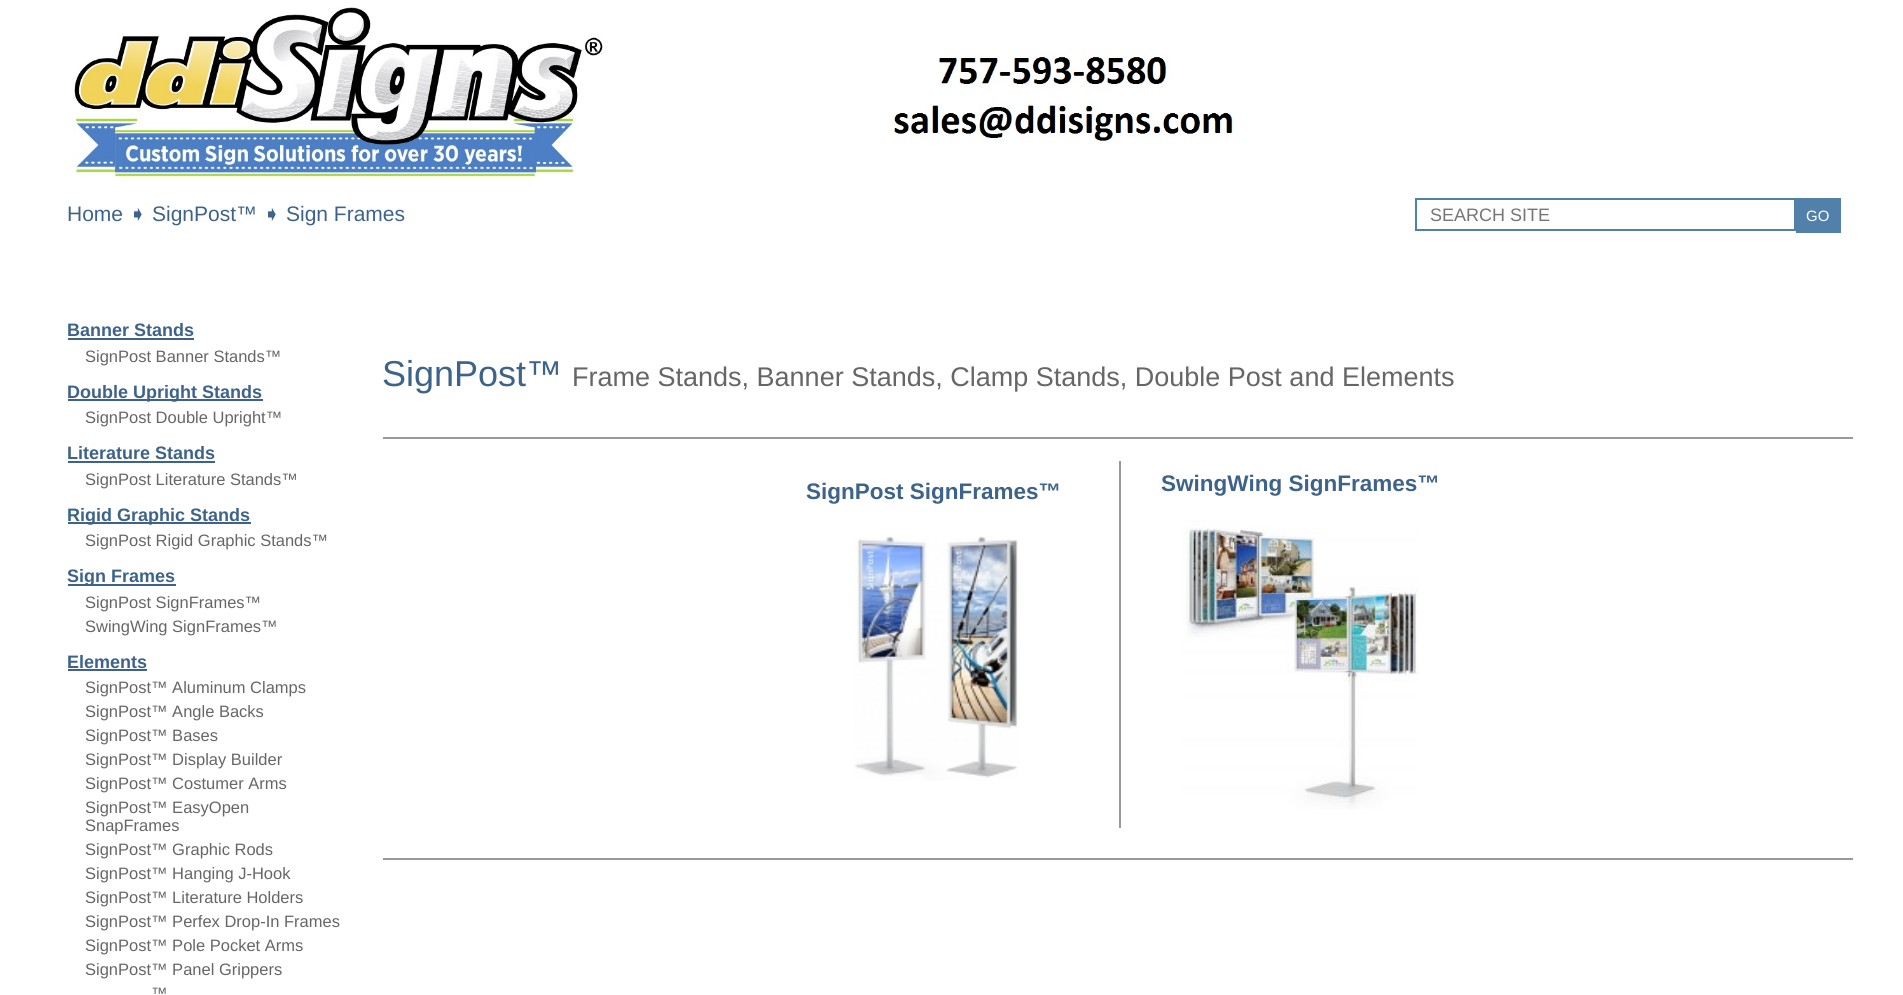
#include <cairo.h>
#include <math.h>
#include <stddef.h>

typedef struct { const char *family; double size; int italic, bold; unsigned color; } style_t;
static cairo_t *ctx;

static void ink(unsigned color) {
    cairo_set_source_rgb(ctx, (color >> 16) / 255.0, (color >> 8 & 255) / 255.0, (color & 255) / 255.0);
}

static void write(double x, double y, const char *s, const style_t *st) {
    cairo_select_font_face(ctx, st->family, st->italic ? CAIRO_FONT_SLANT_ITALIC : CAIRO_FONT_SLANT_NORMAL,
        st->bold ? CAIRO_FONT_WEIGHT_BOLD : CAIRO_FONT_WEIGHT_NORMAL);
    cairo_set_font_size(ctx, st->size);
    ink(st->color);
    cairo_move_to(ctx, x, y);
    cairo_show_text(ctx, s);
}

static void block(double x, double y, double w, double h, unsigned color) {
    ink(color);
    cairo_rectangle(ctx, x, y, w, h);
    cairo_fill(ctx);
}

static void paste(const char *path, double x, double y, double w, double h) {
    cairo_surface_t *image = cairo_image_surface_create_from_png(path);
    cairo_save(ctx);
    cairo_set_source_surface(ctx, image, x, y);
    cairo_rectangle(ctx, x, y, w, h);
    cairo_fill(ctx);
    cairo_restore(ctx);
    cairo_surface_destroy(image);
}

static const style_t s1 = {"Liberation Sans", 21, 0, 0, 0x3d638b};
static const style_t s2 = {"DejaVu Sans", 21, 0, 0, 0x3d638b};
static const style_t s3 = {"Liberation Sans", 18, 0, 0, 0x757575};
static const style_t s4 = {"Liberation Sans", 15, 0, 0, 0xffffff};
static const style_t s5 = {"Liberation Sans", 18, 0, 1, 0x3d638b};
static const style_t s6 = {"Liberation Sans", 16.5, 0, 0, 0x666666};
static const style_t s7 = {"Liberation Sans", 36, 0, 0, 0x3d638b};
static const style_t s8 = {"Liberation Sans", 27, 0, 0, 0x666666};
static const style_t s9 = {"Liberation Sans", 22.5, 0, 1, 0x3d638b};

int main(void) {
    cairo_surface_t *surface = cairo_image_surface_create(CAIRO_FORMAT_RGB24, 1903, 995);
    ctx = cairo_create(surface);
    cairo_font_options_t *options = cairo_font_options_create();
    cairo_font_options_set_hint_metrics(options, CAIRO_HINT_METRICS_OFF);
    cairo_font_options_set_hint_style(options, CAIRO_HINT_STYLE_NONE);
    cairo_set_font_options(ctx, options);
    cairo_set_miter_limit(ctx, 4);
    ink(0xffffff);
    cairo_paint(ctx);
    paste("pic1.png", 73, 7, 1161, 173);
    write(67, 221, "Home", &s1);
    write(129, 221, "➧", &s2);
    write(152, 221, "SignPost™", &s1);
    write(263, 221, "➧", &s2);
    write(286, 221, "Sign Frames", &s1);
    cairo_rectangle(ctx, 1416, 199, 379, 31);
    ink(0x5180aa);
    cairo_stroke(ctx);
    write(1430, 221, "SEARCH SITE", &s3);
    block(1796, 198, 45, 35, 0x5180aa);
    write(1806, 221, "GO", &s4);
    write(67, 336, "Banner Stands", &s5);
    block(68, 338, 126, 2, 0x3d638b);
    write(85, 362, "SignPost Banner Stands™", &s6);
    block(68, 399, 195, 2, 0x3d638b);
    write(67, 398, "Double Upright Stands", &s5);
    write(85, 423, "SignPost Double Upright™", &s6);
    write(67, 459, "Literature Stands", &s5);
    block(68, 461, 147, 2, 0x3d638b);
    write(85, 485, "SignPost Literature Stands™", &s6);
    block(68, 522, 183, 2, 0x3d638b);
    write(67, 521, "Rigid Graphic Stands", &s5);
    write(85, 546, "SignPost Rigid Graphic Stands™", &s6);
    block(68, 584, 108, 2, 0x3d638b);
    write(67, 582, "Sign Frames", &s5);
    write(85, 608, "SignPost SignFrames™", &s6);
    write(85, 632, "SwingWing SignFrames™", &s6);
    write(67, 668, "Elements", &s5);
    block(68, 669, 79, 2, 0x3d638b);
    write(85, 693, "SignPost™ Aluminum Clamps", &s6);
    write(85, 717, "SignPost™ Angle Backs", &s6);
    write(85, 741, "SignPost™ Bases", &s6);
    write(85, 765, "SignPost™ Display Builder", &s6);
    write(85, 789, "SignPost™ Costumer Arms", &s6);
    write(85, 813, "SignPost™ EasyOpen", &s6);
    write(85, 831, "SnapFrames", &s6);
    write(85, 855, "SignPost™ Graphic Rods", &s6);
    write(85, 879, "SignPost™ Hanging J-Hook", &s6);
    write(85, 903, "SignPost™ Literature Holders", &s6);
    write(85, 927, "SignPost™ Perfex Drop-In Frames", &s6);
    write(85, 951, "SignPost™ Pole Pocket Arms", &s6);
    write(85, 975, "SignPost™ Panel Grippers", &s6);
    write(151, 999, "™", &s6);
    write(382, 386, "SignPost™", &s7);
    write(572, 386, "Frame Stands, Banner Stands, Clamp Stands, Double Post and Elements", &s8);
    block(383, 437, 1470, 2, 0x999999);
    block(383, 858, 1470, 2, 0x999999);
    write(806, 499, "SignPost SignFrames™", &s9);
    paste("pic2.png", 854, 536, 165, 245);
    block(1119, 461, 2, 367, 0x999999);
    write(1161, 491, "SwingWing SignFrames™", &s9);
    paste("pic3.png", 1182, 520, 237, 290);
    cairo_surface_write_to_png(surface, "screenshot.png");
    cairo_font_options_destroy(options);
    cairo_destroy(ctx);
    cairo_surface_destroy(surface);
    return 0;
}
